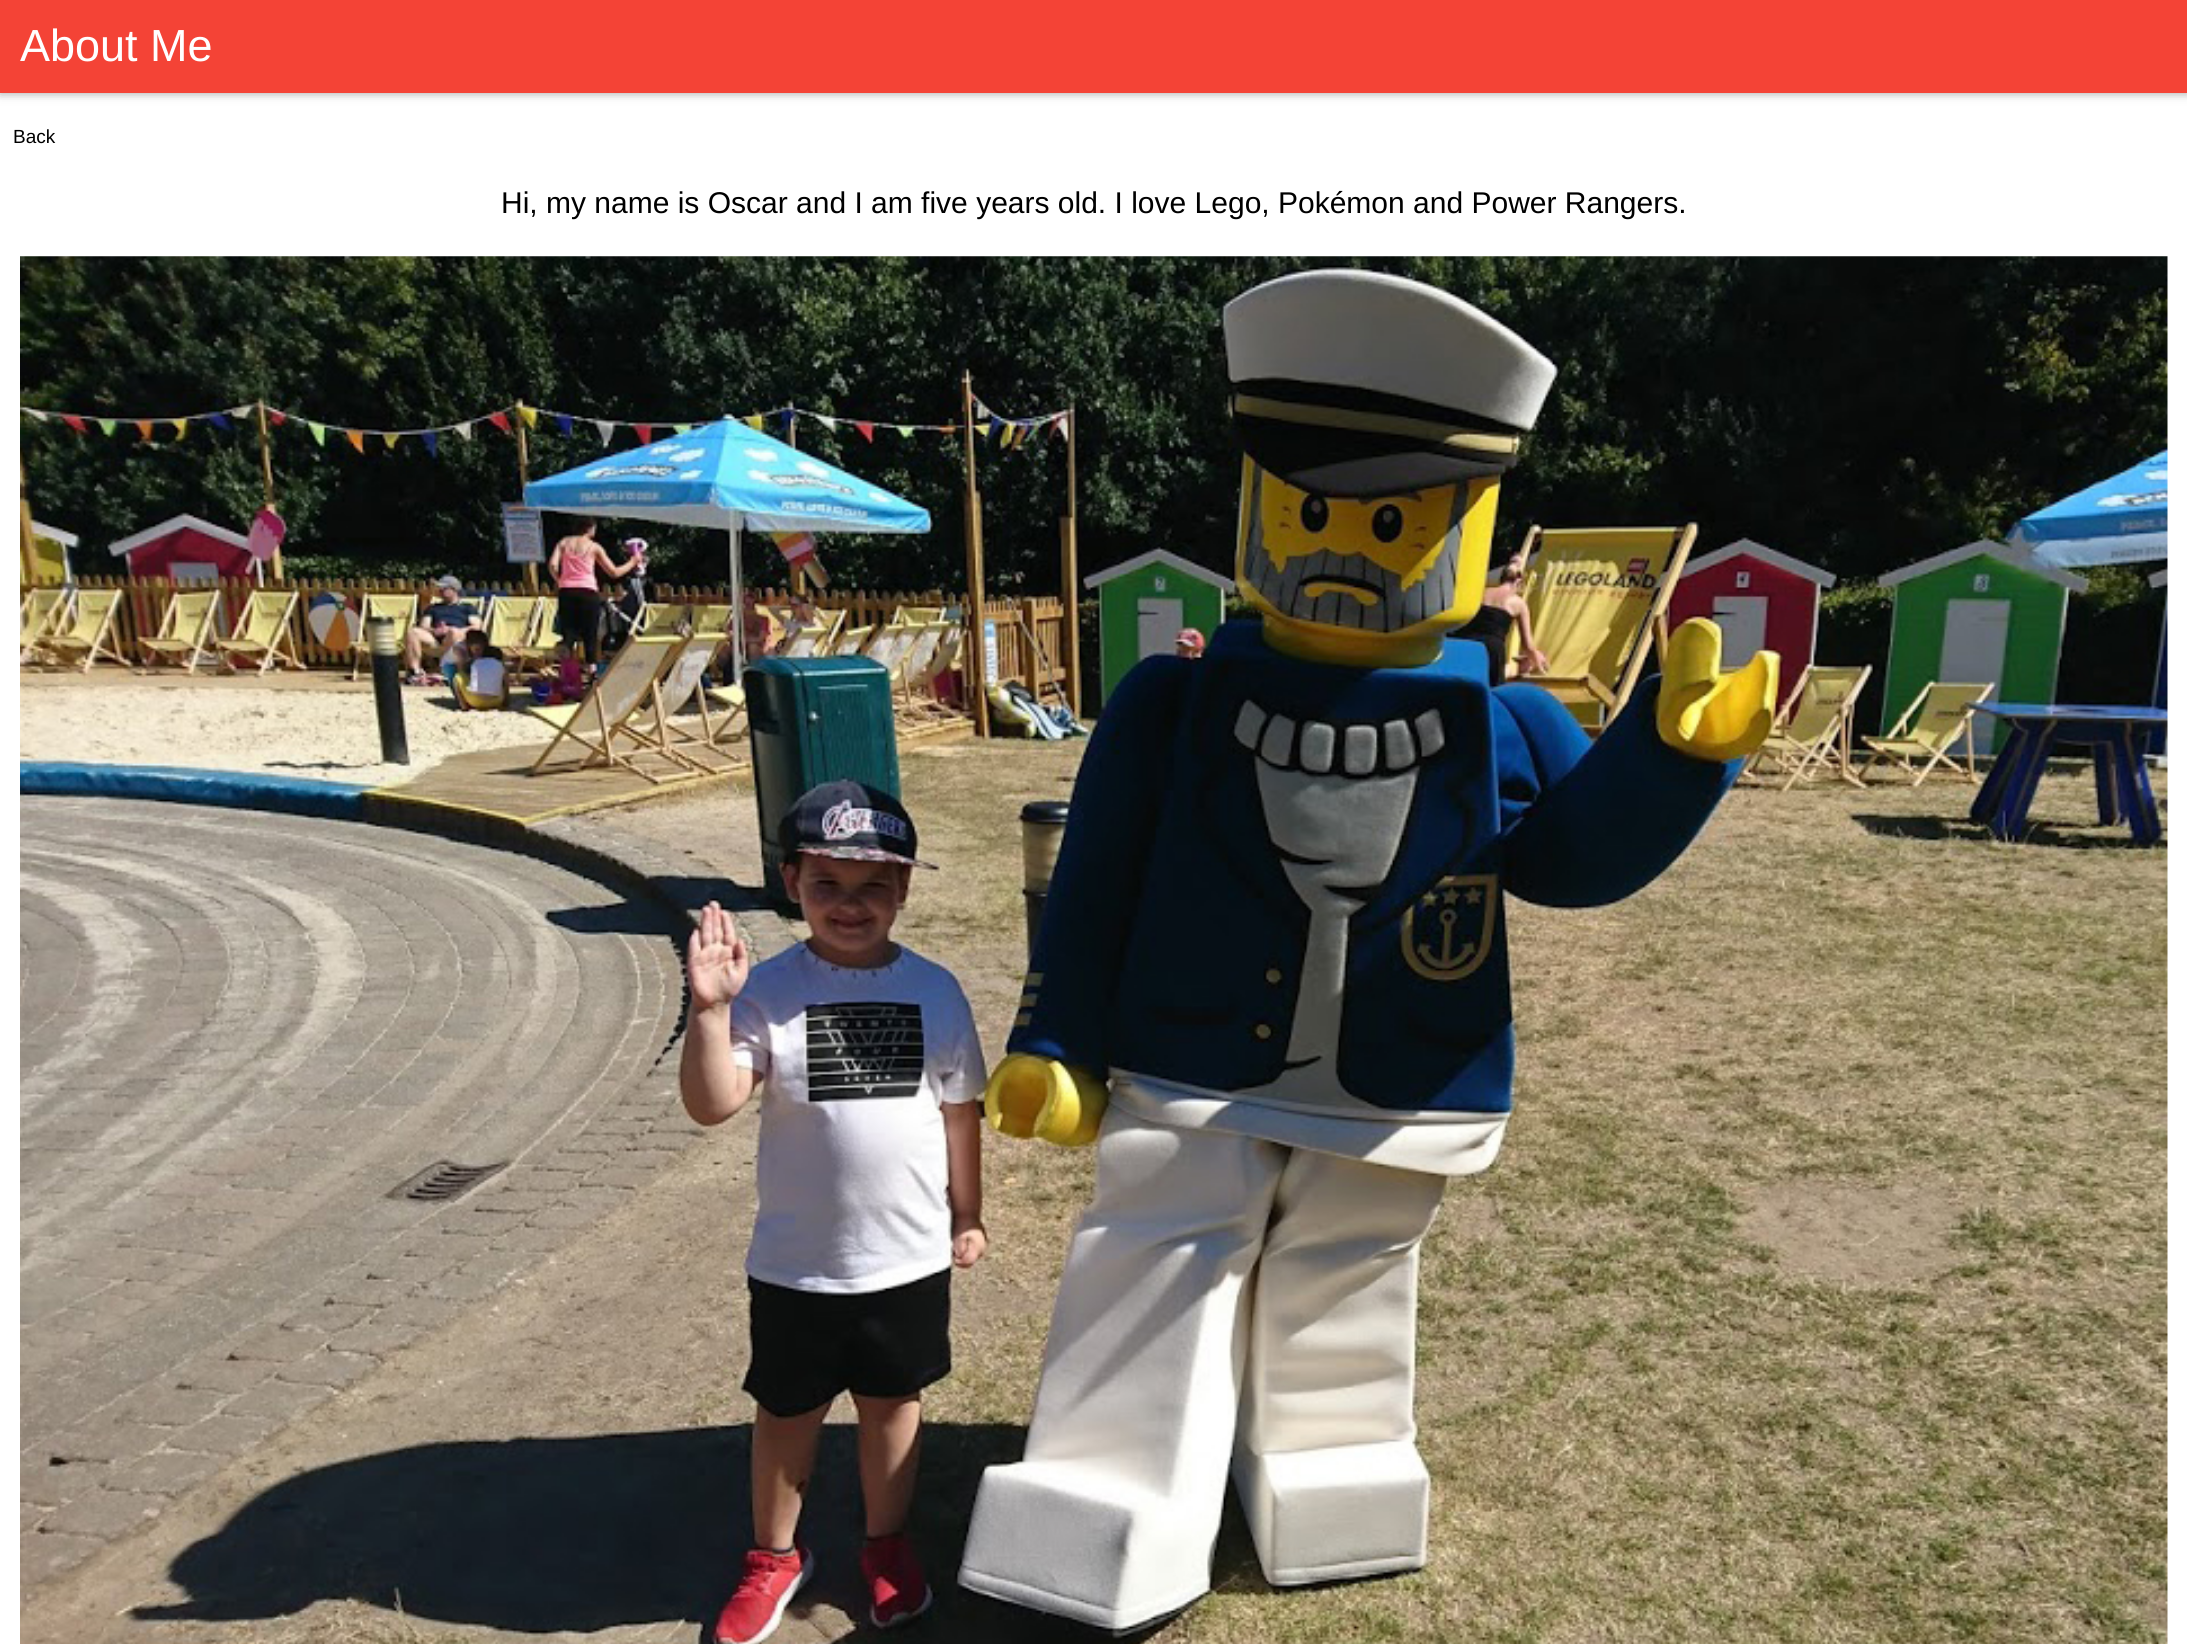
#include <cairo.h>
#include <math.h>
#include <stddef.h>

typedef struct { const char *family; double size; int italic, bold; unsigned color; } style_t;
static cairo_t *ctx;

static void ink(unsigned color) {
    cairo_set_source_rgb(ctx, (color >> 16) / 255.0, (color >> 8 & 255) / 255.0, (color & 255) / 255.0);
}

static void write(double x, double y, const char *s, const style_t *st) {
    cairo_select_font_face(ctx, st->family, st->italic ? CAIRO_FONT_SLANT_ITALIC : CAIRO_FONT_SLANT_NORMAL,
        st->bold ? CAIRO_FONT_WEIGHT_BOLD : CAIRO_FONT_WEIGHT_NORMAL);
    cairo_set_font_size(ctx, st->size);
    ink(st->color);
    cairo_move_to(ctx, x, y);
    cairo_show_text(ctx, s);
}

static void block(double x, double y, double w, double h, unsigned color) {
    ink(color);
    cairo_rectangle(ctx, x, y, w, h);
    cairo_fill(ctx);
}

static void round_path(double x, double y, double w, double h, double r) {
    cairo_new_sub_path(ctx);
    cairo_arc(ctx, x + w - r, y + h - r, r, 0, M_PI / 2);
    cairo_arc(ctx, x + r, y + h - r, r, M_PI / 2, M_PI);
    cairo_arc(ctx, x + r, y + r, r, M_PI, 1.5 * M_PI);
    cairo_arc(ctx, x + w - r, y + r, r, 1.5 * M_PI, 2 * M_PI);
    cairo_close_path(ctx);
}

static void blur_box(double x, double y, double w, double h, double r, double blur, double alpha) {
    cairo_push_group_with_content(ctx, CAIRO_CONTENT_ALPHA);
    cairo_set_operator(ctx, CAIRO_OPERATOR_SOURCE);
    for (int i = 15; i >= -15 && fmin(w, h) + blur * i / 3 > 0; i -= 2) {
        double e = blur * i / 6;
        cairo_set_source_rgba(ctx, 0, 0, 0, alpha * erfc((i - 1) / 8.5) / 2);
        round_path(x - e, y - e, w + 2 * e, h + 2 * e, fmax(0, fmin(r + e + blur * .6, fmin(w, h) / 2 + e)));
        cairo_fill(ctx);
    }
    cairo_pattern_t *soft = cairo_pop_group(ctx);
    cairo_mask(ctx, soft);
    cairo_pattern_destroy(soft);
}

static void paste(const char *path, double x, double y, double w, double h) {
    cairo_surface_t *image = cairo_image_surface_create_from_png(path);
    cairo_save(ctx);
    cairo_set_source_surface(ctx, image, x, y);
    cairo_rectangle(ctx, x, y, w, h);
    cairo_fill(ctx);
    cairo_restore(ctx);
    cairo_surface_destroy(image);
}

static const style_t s1 = {"Liberation Sans", 45, 0, 0, 0xffffff};
static const style_t s2 = {"Liberation Sans", 19, 0, 0, 0x000000};
static const style_t s3 = {"Liberation Sans", 30, 0, 0, 0x000000};

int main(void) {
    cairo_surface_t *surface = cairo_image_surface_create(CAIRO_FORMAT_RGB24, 2187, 1644);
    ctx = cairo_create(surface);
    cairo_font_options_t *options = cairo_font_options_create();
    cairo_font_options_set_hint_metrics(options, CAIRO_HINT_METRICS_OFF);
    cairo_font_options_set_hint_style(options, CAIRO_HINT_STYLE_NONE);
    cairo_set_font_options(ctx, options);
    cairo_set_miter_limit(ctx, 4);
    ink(0xffffff);
    cairo_paint(ctx);
    ink(0x000000);
    blur_box(0, 3, 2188, 92, 0, 6, 0.12);
    blur_box(0, 3, 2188, 92, 0, 3, 0.16);
    block(0, 0, 2187, 93, 0xf44336);
    write(20, 61, "About Me", &s1);
    write(13, 143, "Back", &s2);
    write(501, 213, "Hi, my name is Oscar and I am five years old. I love Lego, Pokémon and Power Rangers.", &s3);
    paste("pic1.png", 20, 256, 2148, 1388);
    cairo_surface_write_to_png(surface, "screenshot.png");
    cairo_font_options_destroy(options);
    cairo_destroy(ctx);
    cairo_surface_destroy(surface);
    return 0;
}
